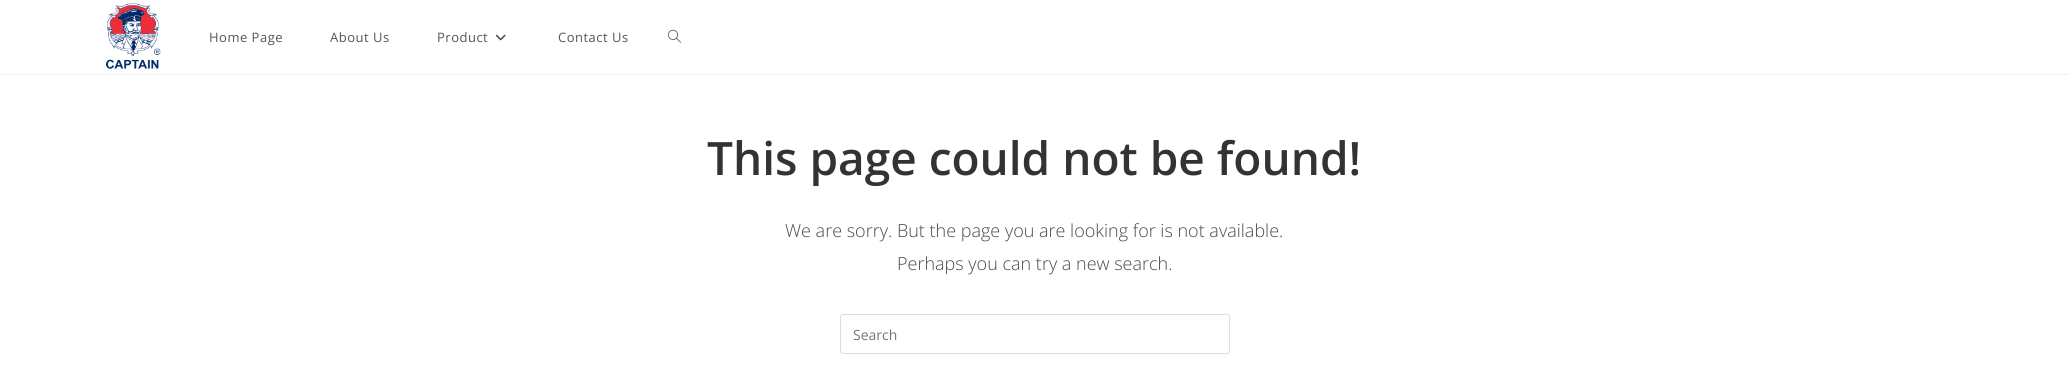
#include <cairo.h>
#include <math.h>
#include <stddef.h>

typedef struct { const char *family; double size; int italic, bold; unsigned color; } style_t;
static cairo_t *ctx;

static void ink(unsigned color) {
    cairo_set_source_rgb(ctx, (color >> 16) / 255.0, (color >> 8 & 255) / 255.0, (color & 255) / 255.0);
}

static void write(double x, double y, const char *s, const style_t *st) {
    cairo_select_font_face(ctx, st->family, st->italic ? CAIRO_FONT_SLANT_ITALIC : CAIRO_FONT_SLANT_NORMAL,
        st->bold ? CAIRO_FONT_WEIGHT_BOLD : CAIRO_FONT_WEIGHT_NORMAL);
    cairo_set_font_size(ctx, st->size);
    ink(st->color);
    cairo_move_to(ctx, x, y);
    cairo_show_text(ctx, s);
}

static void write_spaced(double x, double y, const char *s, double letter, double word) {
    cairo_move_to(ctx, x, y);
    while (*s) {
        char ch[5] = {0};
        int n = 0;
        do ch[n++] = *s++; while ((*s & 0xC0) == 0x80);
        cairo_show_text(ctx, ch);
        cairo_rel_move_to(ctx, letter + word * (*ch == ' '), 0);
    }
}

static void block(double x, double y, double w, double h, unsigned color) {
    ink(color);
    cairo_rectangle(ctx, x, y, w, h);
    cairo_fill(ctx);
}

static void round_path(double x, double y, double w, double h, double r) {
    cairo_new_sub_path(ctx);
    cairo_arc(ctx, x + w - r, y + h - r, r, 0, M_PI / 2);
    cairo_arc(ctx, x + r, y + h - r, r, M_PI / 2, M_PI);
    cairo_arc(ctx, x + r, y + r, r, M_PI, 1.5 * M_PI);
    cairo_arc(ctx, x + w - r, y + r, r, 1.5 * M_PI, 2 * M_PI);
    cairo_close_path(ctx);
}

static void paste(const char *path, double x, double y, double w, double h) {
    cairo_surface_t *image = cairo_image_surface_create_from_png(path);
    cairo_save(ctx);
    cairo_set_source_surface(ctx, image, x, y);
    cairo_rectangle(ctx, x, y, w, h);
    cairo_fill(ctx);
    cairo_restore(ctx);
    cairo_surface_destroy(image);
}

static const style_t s1 = {"Open Sans SemiBold", 46, 0, 0, 0x333333};
static const style_t s2 = {"Open Sans Light", 18, 0, 0, 0x4a4a4a};
static const style_t s3 = {"Open Sans", 14, 0, 0, 0x757575};

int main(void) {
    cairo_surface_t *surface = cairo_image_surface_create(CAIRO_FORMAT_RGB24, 2069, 366);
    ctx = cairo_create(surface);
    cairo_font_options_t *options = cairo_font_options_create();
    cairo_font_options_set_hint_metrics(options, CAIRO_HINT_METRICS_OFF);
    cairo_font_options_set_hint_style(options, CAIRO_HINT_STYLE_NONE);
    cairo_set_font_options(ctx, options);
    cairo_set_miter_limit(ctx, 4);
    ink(0xffffff);
    cairo_paint(ctx);
    block(0, 74, 2069, 1, 0xf1f1f1);
    paste("pic1.png", 106, 3, 55, 66);
    cairo_select_font_face(ctx, "Open Sans", CAIRO_FONT_SLANT_NORMAL, CAIRO_FONT_WEIGHT_NORMAL);
    cairo_set_font_size(ctx, 13);
    ink(0x555555);
    write_spaced(209, 42, "Home Page", 0.5, 0);
    write_spaced(330, 42, "About Us", 0.5, 0);
    write_spaced(437, 42, "Product", 0.5, 0);
    paste("pic2.png", 495, 34, 11, 7);
    write_spaced(558, 42, "Contact Us", 0.5, 0);
    paste("pic3.png", 668, 29, 13, 14);
    write(707, 175, "This page could not be found!", &s1);
    write(785, 237, "We are sorry. But the page you are looking for is not available.", &s2);
    write(897, 270, "Perhaps you can try a new search.", &s2);
    round_path(840.5, 314.5, 389, 39, 2.5);
    ink(0xdddddd);
    cairo_set_line_width(ctx, 1);
    cairo_stroke(ctx);
    write(853, 340, "Search", &s3);
    cairo_surface_write_to_png(surface, "screenshot.png");
    cairo_font_options_destroy(options);
    cairo_destroy(ctx);
    cairo_surface_destroy(surface);
    return 0;
}
